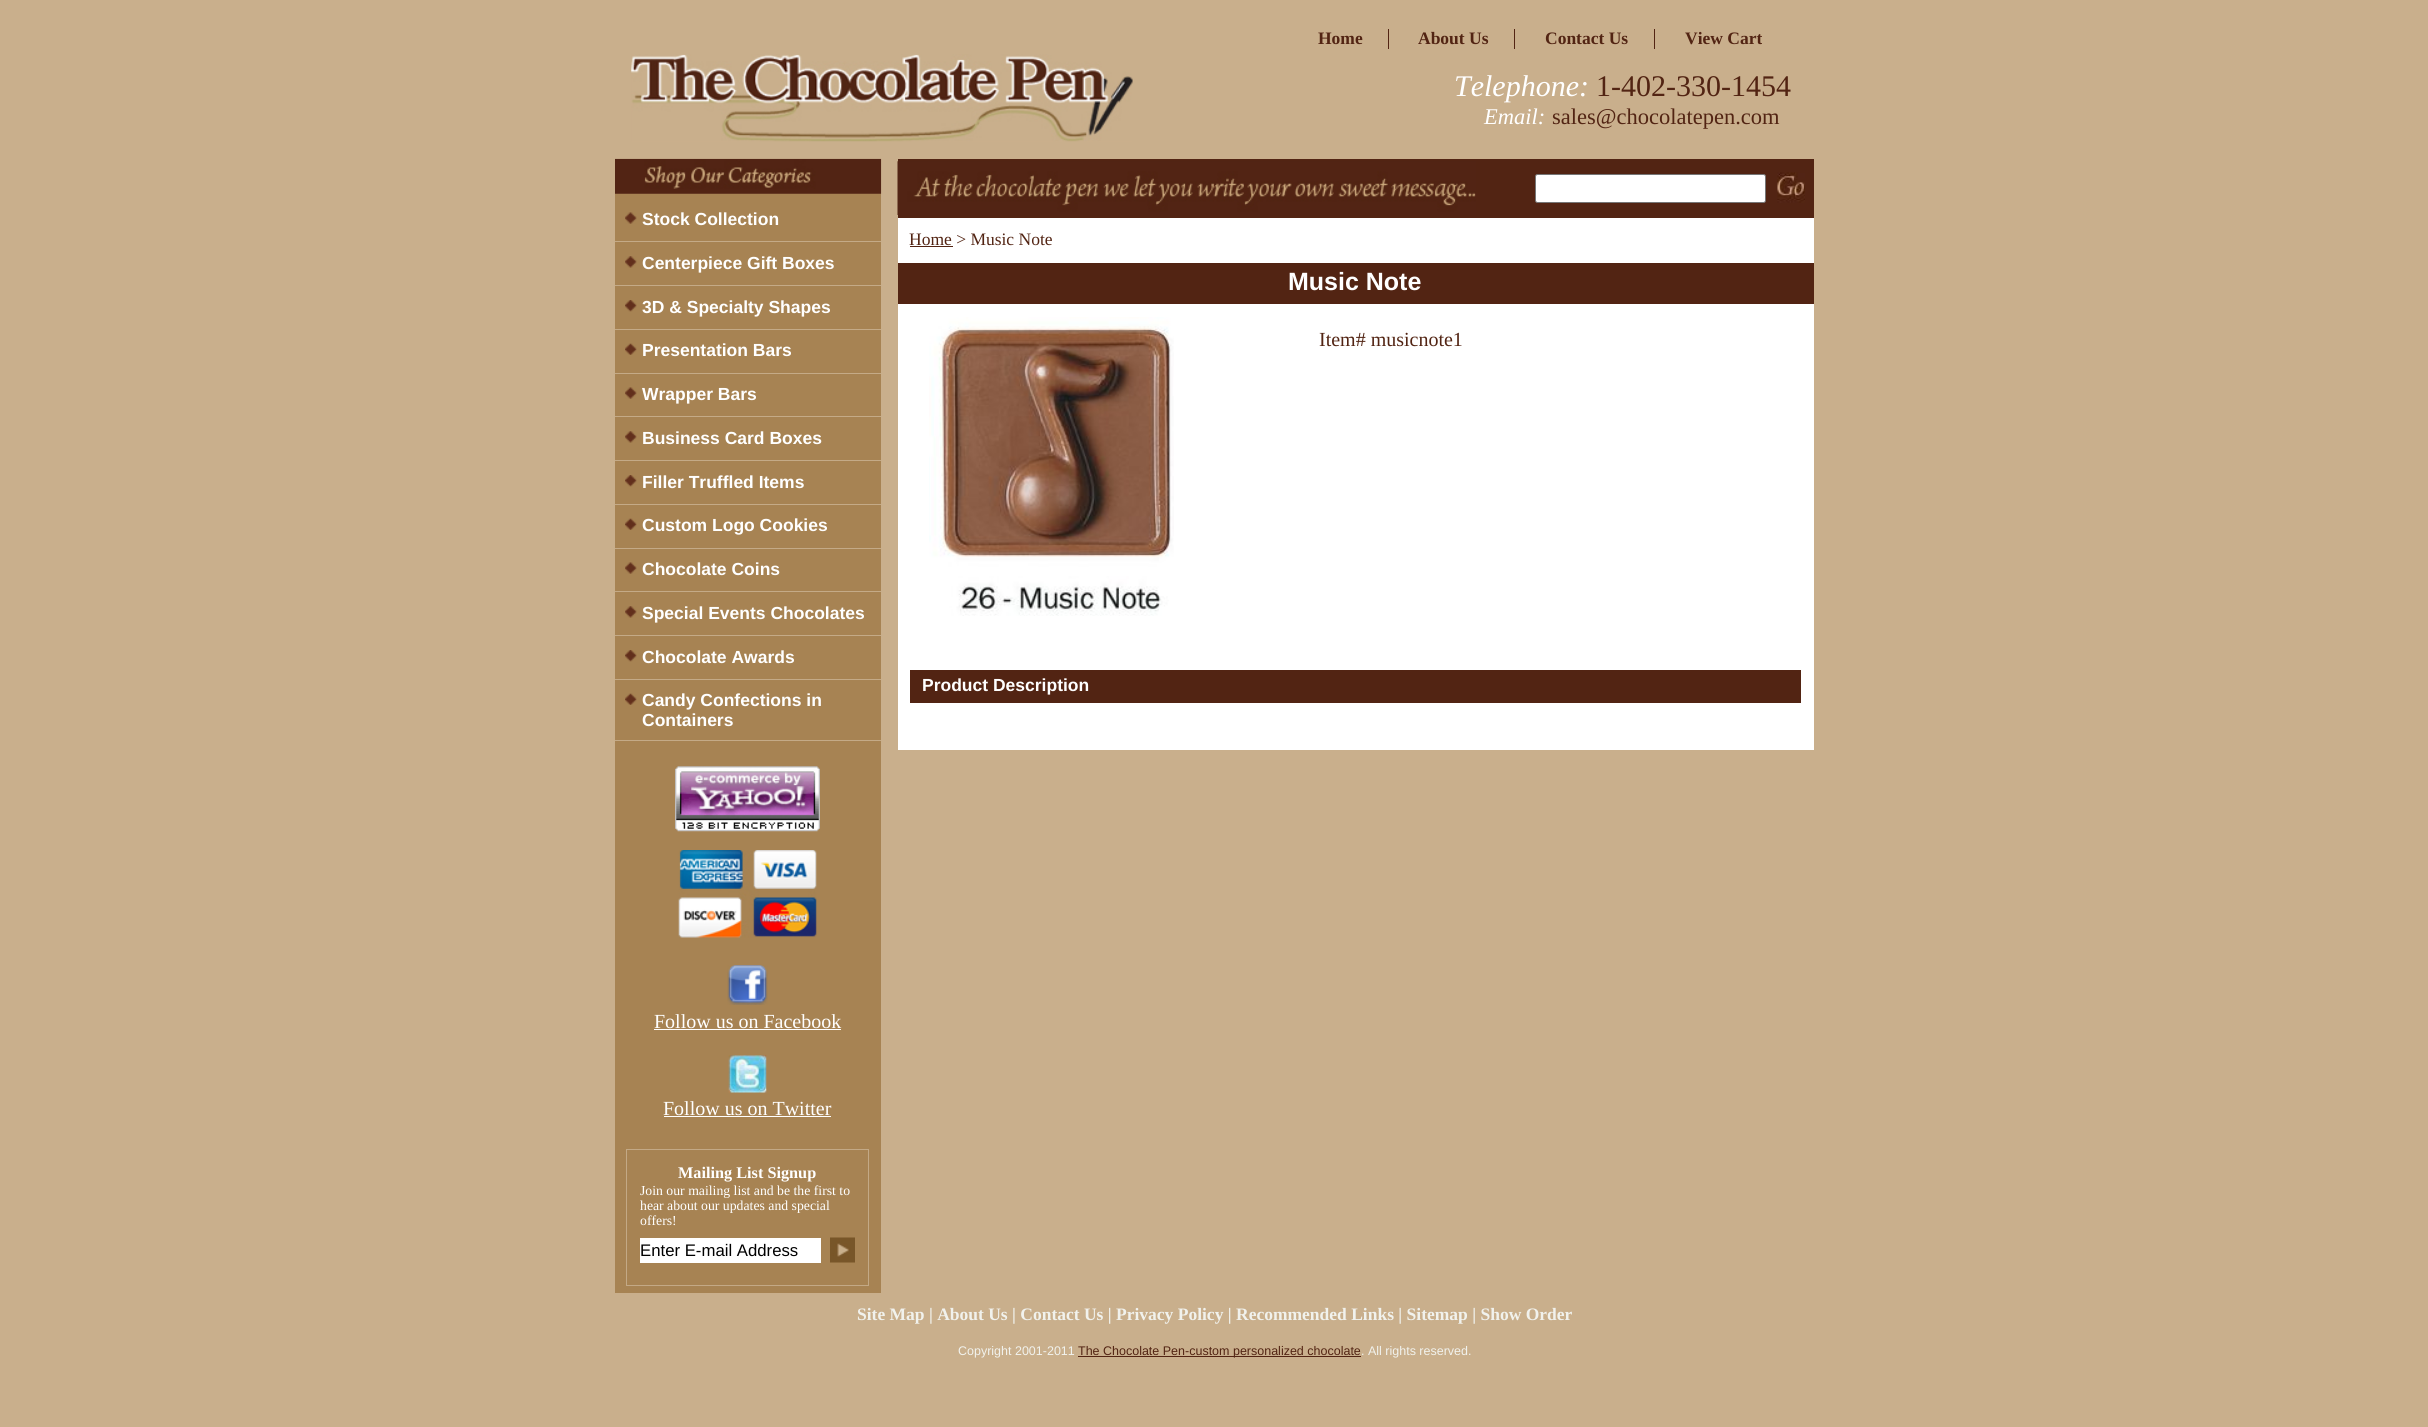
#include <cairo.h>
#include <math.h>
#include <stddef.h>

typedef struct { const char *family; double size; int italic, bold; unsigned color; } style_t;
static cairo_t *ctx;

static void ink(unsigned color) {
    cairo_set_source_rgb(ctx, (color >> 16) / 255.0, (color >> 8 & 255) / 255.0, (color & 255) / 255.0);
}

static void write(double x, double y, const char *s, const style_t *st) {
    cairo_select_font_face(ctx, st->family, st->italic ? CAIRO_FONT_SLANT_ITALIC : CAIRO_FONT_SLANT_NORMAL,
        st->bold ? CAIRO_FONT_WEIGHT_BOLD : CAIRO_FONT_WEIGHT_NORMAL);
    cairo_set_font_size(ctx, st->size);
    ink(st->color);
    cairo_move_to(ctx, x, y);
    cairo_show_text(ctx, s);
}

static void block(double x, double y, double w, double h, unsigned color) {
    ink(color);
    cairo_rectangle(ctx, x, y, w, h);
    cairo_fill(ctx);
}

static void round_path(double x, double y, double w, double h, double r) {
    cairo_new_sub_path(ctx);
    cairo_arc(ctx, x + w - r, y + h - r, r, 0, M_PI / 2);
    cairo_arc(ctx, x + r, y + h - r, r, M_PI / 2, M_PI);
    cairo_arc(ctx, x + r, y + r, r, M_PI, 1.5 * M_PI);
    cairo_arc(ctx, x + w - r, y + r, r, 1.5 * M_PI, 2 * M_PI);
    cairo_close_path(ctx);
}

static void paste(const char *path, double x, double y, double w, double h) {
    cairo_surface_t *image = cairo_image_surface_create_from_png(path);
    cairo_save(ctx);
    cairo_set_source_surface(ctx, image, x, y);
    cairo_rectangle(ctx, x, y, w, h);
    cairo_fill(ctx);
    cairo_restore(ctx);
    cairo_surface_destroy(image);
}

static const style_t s1 = {"Liberation Serif", 17.5, 0, 1, 0x522413};
static const style_t s2 = {"Liberation Serif", 30, 1, 0, 0xffffff};
static const style_t s3 = {"Liberation Serif", 30, 0, 0, 0x522413};
static const style_t s4 = {"Liberation Serif", 22.5, 1, 0, 0xffffff};
static const style_t s5 = {"Liberation Serif", 22.5, 0, 0, 0x522413};
static const style_t s6 = {"Liberation Sans", 17.5, 0, 1, 0xffffff};
static const style_t s7 = {"Liberation Serif", 20, 0, 0, 0xffffff};
static const style_t s8 = {"Liberation Serif", 16.25, 0, 1, 0xffffff};
static const style_t s9 = {"Liberation Serif", 13.75, 0, 0, 0xffffff};
static const style_t s10 = {"Liberation Sans", 16.75, 0, 0, 0x000000};
static const style_t s11 = {"Liberation Serif", 17.5, 0, 0, 0x522413};
static const style_t s12 = {"Liberation Sans", 25, 0, 1, 0xffffff};
static const style_t s13 = {"Liberation Serif", 20, 0, 0, 0x522413};
static const style_t s14 = {"Liberation Serif", 17.5, 0, 1, 0xf1f2ed};
static const style_t s15 = {"Liberation Sans", 12.5, 0, 0, 0xf1f2ed};
static const style_t s16 = {"Liberation Sans", 12.5, 0, 0, 0x522413};

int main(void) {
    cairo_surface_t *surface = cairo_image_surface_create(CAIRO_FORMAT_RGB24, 2428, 1427);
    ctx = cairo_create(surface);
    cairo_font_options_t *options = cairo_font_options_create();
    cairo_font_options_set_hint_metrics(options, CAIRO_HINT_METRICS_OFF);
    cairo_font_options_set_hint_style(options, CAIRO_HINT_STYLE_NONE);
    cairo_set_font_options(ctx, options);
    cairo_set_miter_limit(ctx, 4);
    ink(0xc9af8c);
    cairo_paint(ctx);
    block(1388, 29, 1, 20, 0x522413);
    write(1318, 44, "Home", &s1);
    block(1514, 29, 1, 20, 0x522413);
    write(1418, 44, "About Us", &s1);
    block(1654, 29, 1, 20, 0x522413);
    write(1545, 44, "Contact Us", &s1);
    write(1685, 44, "View Cart", &s1);
    paste("pic1.png", 631, 54, 502, 88);
    write(1454, 96, "Telephone:", &s2);
    write(1596, 96, "1-402-330-1454", &s3);
    write(1484, 124, "Email:", &s4);
    write(1552, 124, "sales@chocolatepen.com", &s5);
    block(615, 193, 266, 1100, 0xa78353);
    paste("pic2.png", 615, 158, 267, 36);
    paste("pic3.png", 625, 212, 12, 12);
    block(615, 241, 266, 1, 0xc4aa87);
    write(642, 225, "Stock Collection", &s6);
    paste("pic4.png", 625, 256, 12, 12);
    block(615, 285, 266, 1, 0xc4aa87);
    write(642, 269, "Centerpiece Gift Boxes", &s6);
    paste("pic5.png", 625, 300, 12, 12);
    block(615, 329, 266, 1, 0xc4aa87);
    write(642, 313, "3D & Specialty Shapes", &s6);
    paste("pic6.png", 625, 343, 12, 12);
    block(615, 373, 266, 1, 0xc4aa87);
    write(642, 356, "Presentation Bars", &s6);
    paste("pic3.png", 625, 387, 12, 12);
    block(615, 416, 266, 1, 0xc4aa87);
    write(642, 400, "Wrapper Bars", &s6);
    paste("pic7.png", 625, 431, 12, 12);
    block(615, 460, 266, 1, 0xc4aa87);
    write(642, 444, "Business Card Boxes", &s6);
    paste("pic5.png", 625, 475, 12, 12);
    block(615, 504, 266, 1, 0xc4aa87);
    write(642, 488, "Filler Truffled Items", &s6);
    paste("pic6.png", 625, 518, 12, 12);
    block(615, 548, 266, 1, 0xc4aa87);
    write(642, 531, "Custom Logo Cookies", &s6);
    paste("pic3.png", 625, 562, 12, 12);
    block(615, 591, 266, 1, 0xc4aa87);
    write(642, 575, "Chocolate Coins", &s6);
    paste("pic7.png", 625, 606, 12, 12);
    block(615, 635, 266, 1, 0xc4aa87);
    write(642, 619, "Special Events Chocolates", &s6);
    paste("pic5.png", 625, 650, 12, 12);
    block(615, 679, 266, 1, 0xc4aa87);
    write(642, 663, "Chocolate Awards", &s6);
    paste("pic6.png", 625, 693, 12, 12);
    block(615, 740, 266, 1, 0xc4aa87);
    write(642, 706, "Candy Confections in", &s6);
    write(642, 726, "Containers", &s6);
    paste("pic8.png", 675, 766, 145, 66);
    paste("pic9.png", 678, 850, 139, 88);
    paste("pic10.png", 727, 965, 41, 40);
    write(654, 1028, "Follow us on Facebook", &s7);
    block(654, 1029, 187, 1, 0xffffff);
    paste("pic11.png", 728, 1055, 39, 38);
    write(663, 1115, "Follow us on Twitter", &s7);
    block(664, 1116, 167, 1, 0xffffff);
    cairo_rectangle(ctx, 626.5, 1149.5, 242, 136);
    ink(0xc3a986);
    cairo_set_line_width(ctx, 1);
    cairo_stroke(ctx);
    write(678, 1178, "Mailing List Signup", &s8);
    write(640, 1195, "Join our mailing list and be the first to", &s9);
    write(640, 1210, "hear about our updates and special", &s9);
    write(640, 1225, "offers!", &s9);
    block(640, 1238, 181, 25, 0xffffff);
    write(640, 1256, "Enter E-mail Address", &s10);
    paste("pic12.png", 830, 1237, 25, 26);
    block(898, 218, 916, 532, 0xffffff);
    block(898, 159, 916, 59, 0x522413);
    paste("pic13.png", 897, 161, 579, 54);
    ink(0xffffff);
    round_path(1535.5, 174.5, 230, 28, 2);
    cairo_fill_preserve(ctx);
    ink(0x767676);
    cairo_stroke(ctx);
    paste("pic14.png", 1777, 172, 28, 31);
    write(909, 245, "Home > Music Note", &s11);
    block(910, 246, 43, 1, 0x522413);
    block(898, 263, 916, 41, 0x522413);
    write(1288, 290, "Music Note", &s12);
    paste("pic15.png", 929, 317, 245, 299);
    write(1319, 346, "Item# musicnote1", &s13);
    block(910, 670, 891, 33, 0x522413);
    write(922, 691, "Product Description", &s6);
    write(857, 1320, "Site Map | About Us | Contact Us | Privacy Policy | Recommended Links | Sitemap | Show Order", &s14);
    write(958, 1355, "Copyright 2001-2011", &s15);
    block(1078, 1356, 283, 1, 0x522413);
    write(1078, 1355, "The Chocolate Pen-custom personalized chocolate", &s16);
    write(1361, 1355, ". All rights reserved.", &s15);
    cairo_surface_write_to_png(surface, "screenshot.png");
    cairo_font_options_destroy(options);
    cairo_destroy(ctx);
    cairo_surface_destroy(surface);
    return 0;
}
